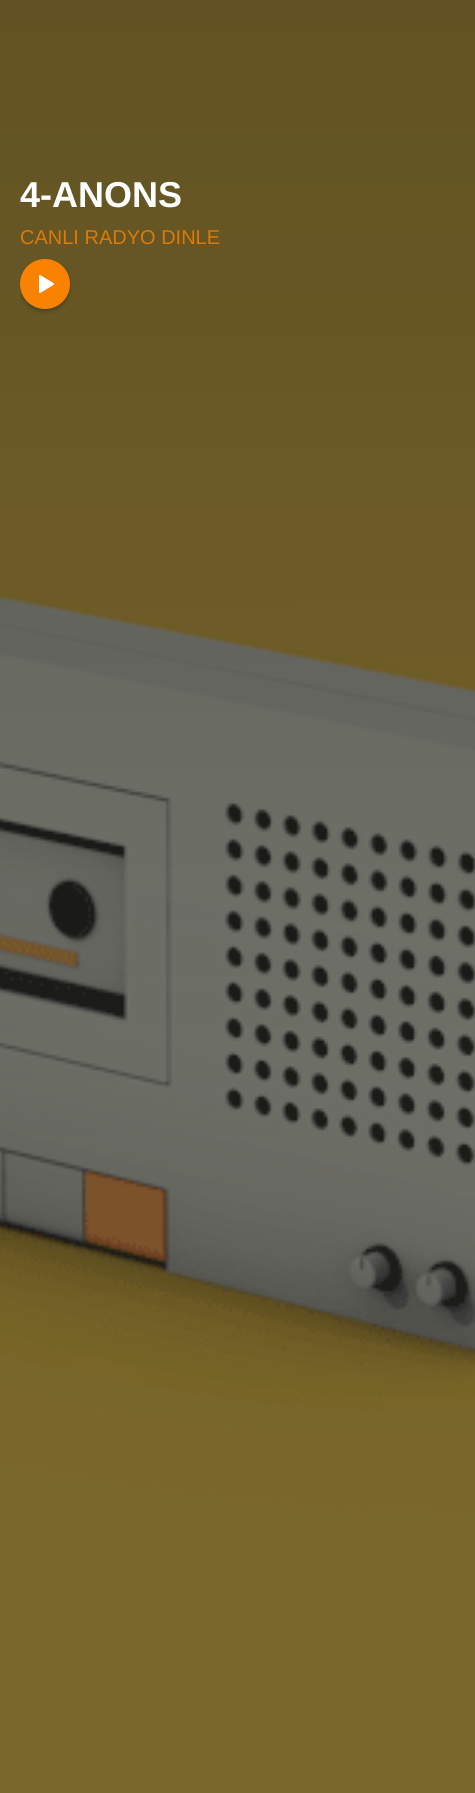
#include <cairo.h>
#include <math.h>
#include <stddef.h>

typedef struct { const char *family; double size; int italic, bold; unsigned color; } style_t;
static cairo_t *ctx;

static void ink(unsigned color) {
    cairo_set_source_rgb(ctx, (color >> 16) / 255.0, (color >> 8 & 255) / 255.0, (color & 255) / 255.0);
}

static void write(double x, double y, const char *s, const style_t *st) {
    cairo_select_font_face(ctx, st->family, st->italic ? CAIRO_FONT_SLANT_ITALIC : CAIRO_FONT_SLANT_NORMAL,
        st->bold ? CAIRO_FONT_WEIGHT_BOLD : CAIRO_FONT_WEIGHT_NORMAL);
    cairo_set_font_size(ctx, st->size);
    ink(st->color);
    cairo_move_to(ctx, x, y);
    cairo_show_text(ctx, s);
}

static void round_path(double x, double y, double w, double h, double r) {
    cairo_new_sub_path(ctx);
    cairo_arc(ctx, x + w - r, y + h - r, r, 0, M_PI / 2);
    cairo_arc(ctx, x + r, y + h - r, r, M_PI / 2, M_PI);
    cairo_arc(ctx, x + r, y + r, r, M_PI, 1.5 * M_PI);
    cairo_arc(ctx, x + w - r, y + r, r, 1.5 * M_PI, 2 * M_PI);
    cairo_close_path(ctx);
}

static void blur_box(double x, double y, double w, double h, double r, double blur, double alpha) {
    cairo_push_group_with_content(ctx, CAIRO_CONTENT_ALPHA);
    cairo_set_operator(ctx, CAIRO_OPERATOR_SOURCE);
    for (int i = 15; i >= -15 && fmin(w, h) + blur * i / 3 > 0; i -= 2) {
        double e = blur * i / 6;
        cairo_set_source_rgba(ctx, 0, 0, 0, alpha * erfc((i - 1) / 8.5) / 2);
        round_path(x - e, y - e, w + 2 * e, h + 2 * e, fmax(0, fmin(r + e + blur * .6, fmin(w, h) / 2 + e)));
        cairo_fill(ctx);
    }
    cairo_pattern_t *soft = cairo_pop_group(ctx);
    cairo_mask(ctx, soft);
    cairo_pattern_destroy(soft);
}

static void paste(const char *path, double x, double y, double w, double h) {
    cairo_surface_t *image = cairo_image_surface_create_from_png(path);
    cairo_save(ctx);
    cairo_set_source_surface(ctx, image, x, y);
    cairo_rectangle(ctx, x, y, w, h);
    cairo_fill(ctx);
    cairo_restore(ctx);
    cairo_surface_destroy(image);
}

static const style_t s1 = {"Liberation Sans", 36, 0, 1, 0xffffff};
static const style_t s2 = {"Liberation Sans", 20, 0, 0, 0xdc7907};

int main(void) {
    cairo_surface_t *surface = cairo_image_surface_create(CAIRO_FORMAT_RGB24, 475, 1793);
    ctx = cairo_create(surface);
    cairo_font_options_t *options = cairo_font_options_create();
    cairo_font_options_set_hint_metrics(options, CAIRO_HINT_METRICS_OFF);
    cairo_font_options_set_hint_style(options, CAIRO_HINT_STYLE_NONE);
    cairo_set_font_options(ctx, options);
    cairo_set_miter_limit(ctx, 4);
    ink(0xffffff);
    cairo_paint(ctx);
    paste("pic1.png", 0, 0, 475, 1793);
    write(20, 207, "4-ANONS", &s1);
    write(20, 244, "CANLI RADYO DINLE", &s2);
    cairo_save(ctx);
    cairo_rectangle(ctx, 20, 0, 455, 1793);
    cairo_clip(ctx);
    ink(0x1a1a1a);
    blur_box(21, 263, 48, 48, 24, 2.5, 0.44);
    cairo_restore(ctx);
    ink(0xf98200);
    cairo_arc(ctx, 45, 284, 25, 0, 2 * M_PI);
    cairo_fill(ctx);
    paste("pic2.png", 39, 275, 15, 18);
    cairo_surface_write_to_png(surface, "screenshot.png");
    cairo_font_options_destroy(options);
    cairo_destroy(ctx);
    cairo_surface_destroy(surface);
    return 0;
}
